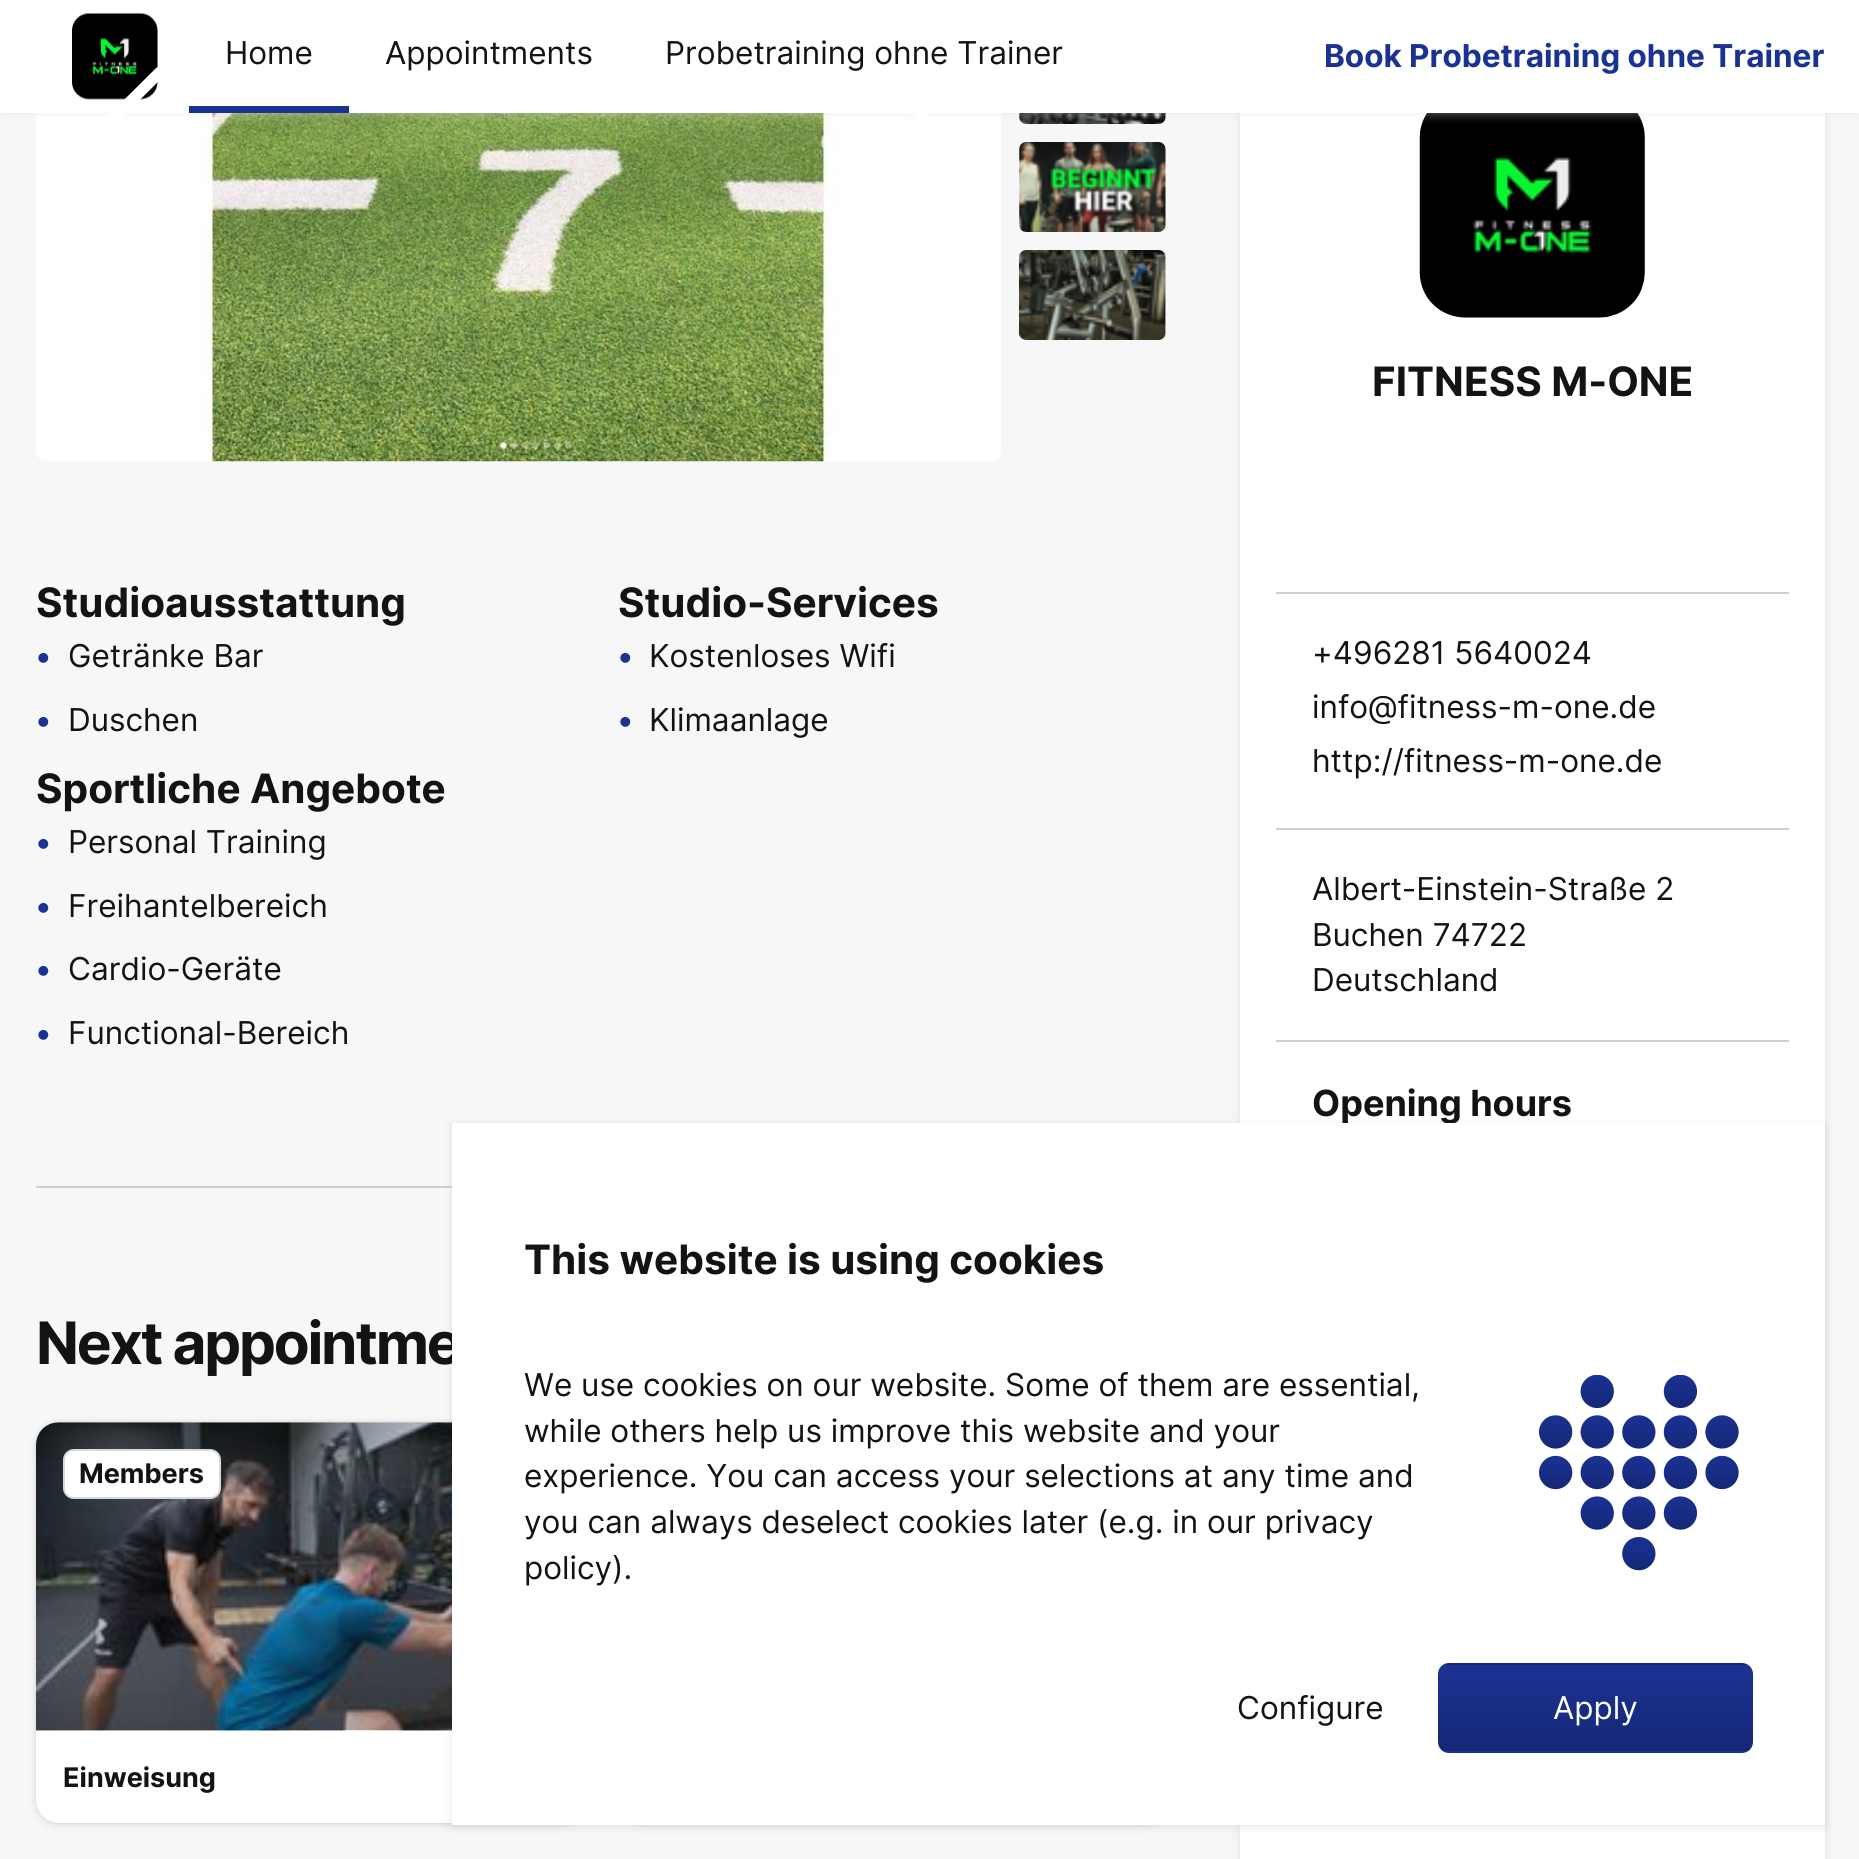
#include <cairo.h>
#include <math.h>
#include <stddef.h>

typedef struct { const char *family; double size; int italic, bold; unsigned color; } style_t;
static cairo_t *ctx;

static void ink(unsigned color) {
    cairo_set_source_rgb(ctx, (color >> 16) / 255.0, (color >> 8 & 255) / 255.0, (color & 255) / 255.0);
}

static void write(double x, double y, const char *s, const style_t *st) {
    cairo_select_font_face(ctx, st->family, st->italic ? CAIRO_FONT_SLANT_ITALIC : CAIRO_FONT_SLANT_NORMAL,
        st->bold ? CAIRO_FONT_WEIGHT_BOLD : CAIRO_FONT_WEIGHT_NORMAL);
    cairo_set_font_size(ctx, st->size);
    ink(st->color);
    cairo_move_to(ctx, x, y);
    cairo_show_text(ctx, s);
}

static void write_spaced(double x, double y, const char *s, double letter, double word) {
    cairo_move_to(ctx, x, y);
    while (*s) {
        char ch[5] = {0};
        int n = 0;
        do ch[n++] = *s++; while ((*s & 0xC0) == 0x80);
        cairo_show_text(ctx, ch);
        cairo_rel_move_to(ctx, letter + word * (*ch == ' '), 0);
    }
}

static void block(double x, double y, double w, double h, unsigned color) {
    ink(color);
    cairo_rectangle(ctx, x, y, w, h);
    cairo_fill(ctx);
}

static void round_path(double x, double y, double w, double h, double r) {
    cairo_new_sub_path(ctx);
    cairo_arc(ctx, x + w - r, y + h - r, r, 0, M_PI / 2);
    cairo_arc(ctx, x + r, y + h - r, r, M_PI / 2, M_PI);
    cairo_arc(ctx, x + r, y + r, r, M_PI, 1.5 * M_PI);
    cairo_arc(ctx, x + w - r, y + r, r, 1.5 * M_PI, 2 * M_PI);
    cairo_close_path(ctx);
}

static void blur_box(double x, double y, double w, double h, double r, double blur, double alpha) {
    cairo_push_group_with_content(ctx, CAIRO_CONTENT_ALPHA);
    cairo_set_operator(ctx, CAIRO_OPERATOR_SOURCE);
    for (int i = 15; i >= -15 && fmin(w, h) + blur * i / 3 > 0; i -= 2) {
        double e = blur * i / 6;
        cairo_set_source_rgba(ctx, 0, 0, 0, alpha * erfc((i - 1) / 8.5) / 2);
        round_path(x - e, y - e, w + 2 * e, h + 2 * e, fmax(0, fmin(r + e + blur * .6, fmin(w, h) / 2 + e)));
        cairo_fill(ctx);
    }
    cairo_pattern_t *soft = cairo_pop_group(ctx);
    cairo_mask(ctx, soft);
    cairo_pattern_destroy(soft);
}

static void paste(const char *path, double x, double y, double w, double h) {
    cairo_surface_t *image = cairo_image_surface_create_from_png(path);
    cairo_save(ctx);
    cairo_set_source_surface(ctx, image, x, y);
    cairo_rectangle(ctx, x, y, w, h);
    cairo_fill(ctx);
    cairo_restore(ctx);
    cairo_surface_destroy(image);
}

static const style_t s1 = {"Inter", 31.5, 0, 0, 0x131313};
static const style_t s2 = {"Inter", 31.5, 0, 1, 0x1a3294};
static const style_t s3 = {"Inter", 40.5, 0, 1, 0x131313};
static const style_t s4 = {"Inter", 27, 0, 1, 0x131313};
static const style_t s5 = {"Inter", 36, 0, 1, 0x131313};
static const style_t s6 = {"Inter", 31.5, 0, 0, 0xffffff};

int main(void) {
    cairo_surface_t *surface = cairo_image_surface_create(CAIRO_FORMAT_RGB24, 1859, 1859);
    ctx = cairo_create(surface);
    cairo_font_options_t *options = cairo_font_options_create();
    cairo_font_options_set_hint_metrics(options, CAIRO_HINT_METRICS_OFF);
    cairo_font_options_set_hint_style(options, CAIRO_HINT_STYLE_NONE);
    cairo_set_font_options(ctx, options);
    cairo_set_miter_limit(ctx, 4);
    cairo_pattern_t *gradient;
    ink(0xf7f7f7);
    cairo_paint(ctx);
    paste("pic2.png", 36, 113, 965, 349);
    paste("pic3.png", 1019, 113, 147, 11);
    ink(0x000000);
    blur_box(1240, -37, 585, 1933, 23, 4.5, 0.1);
    block(1240, 113, 585, 1746, 0xffffff);
    paste("pic7.png", 1419, 113, 226, 205);
    round_path(1421, 93, 223, 223, 44);
    cairo_set_source_rgba(ctx, 0, 0, 0, 0.1);
    cairo_stroke(ctx);
    ink(0xe0e0e0);
    blur_box(0, 0, 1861, 113, 0, 5.5, 0.5);
    block(0, 0, 1859, 113, 0xffffff);
    paste("pic1.png", 72, 13, 86, 87);
    round_path(73, 15, 84, 83, 17);
    cairo_set_source_rgba(ctx, 0, 0, 0, 0.1);
    cairo_stroke(ctx);
    block(189, 106, 160, 7, 0x1a3294);
    write(225, 64, "Home", &s1);
    write(385, 64, "Appointments", &s1);
    write(665, 64, "Probetraining ohne Trainer", &s1);
    write(1324, 67, "Book Probetraining ohne Trainer", &s2);
    cairo_new_path(ctx);
    cairo_move_to(ctx, 160, 207);
    cairo_line_to(ctx, 92, 139.5);
    cairo_line_to(ctx, 160, 72);
    ink(0xffffff);
    cairo_set_line_width(ctx, 11.2);
    cairo_set_line_cap(ctx, CAIRO_LINE_CAP_ROUND);
    cairo_set_line_join(ctx, CAIRO_LINE_JOIN_ROUND);
    cairo_stroke(ctx);
    cairo_new_path(ctx);
    cairo_move_to(ctx, 877.5, 207);
    cairo_line_to(ctx, 945, 139.5);
    cairo_line_to(ctx, 877.5, 72);
    cairo_stroke(ctx);
    paste("pic4.png", 1019, 142, 147, 90);
    paste("pic5.png", 1019, 250, 147, 90);
    write(36, 617, "Studioausstattung", &s3);
    write(36, 667, "•", &s2);
    write(68, 667, "Getränke Bar", &s1);
    write(36, 731, "•", &s2);
    write(68, 731, "Duschen", &s1);
    write(618, 617, "Studio-Services", &s3);
    write(618, 667, "•", &s2);
    write(649, 667, "Kostenloses Wifi", &s1);
    write(618, 731, "•", &s2);
    write(649, 731, "Klimaanlage", &s1);
    write(36, 803, "Sportliche Angebote", &s3);
    write(36, 853, "•", &s2);
    write(68, 853, "Personal Training", &s1);
    write(36, 917, "•", &s2);
    write(68, 917, "Freihantelbereich", &s1);
    write(36, 980, "•", &s2);
    write(68, 980, "Cardio-Geräte", &s1);
    write(36, 1044, "•", &s2);
    write(68, 1044, "Functional-Bereich", &s1);
    block(36, 1186, 416, 2, 0xcfcfcf);
    cairo_select_font_face(ctx, "Inter", CAIRO_FONT_SLANT_NORMAL, CAIRO_FONT_WEIGHT_BOLD);
    cairo_set_font_size(ctx, 58.5);
    ink(0x131313);
    write_spaced(36, 1364, "Next appointme", -2.25, 0);
    ink(0x000000);
    blur_box(36, 1422, 549, 401, 23, 2, 0.1);
    blur_box(36, 1424, 549, 401, 23, 4.5, 0.1);
    ink(0xffffff);
    round_path(36, 1422, 549, 401, 23);
    cairo_fill(ctx);
    paste("pic6.png", 36, 1422, 416, 309);
    gradient = cairo_pattern_create_linear(311, 1422, 311, 1730);
    cairo_pattern_add_color_stop_rgba(gradient, 0, 0, 0, 0, 0.1);
    cairo_pattern_add_color_stop_rgba(gradient, 1, 0, 0, 0, 0.3);
    cairo_set_source(ctx, gradient);
    cairo_pattern_destroy(gradient);
    cairo_new_path(ctx);
    cairo_move_to(ctx, 59, 1422);
    cairo_line_to(ctx, 562, 1422);
    cairo_curve_to(ctx, 574.5, 1422, 585, 1432.5, 585, 1445);
    cairo_line_to(ctx, 585, 1730);
    cairo_line_to(ctx, 36, 1730);
    cairo_line_to(ctx, 36, 1445);
    cairo_curve_to(ctx, 36, 1432.5, 46.5, 1422, 59, 1422);
    cairo_close_path(ctx);
    cairo_fill(ctx);
    ink(0xffffff);
    round_path(63, 1449, 158, 50, 11);
    cairo_fill(ctx);
    round_path(64, 1450, 156, 48, 10);
    cairo_set_source_rgba(ctx, 0, 0, 0, 0.15);
    cairo_set_line_width(ctx, 2);
    cairo_set_line_cap(ctx, CAIRO_LINE_CAP_BUTT);
    cairo_set_line_join(ctx, CAIRO_LINE_JOIN_MITER);
    cairo_stroke(ctx);
    write(79, 1483, "Members", &s4);
    write(63, 1787, "Einweisung", &s4);
    ink(0x000000);
    blur_box(621, 1424, 547, 401, 23, 4.5, 0.1);
    write(1372, 396, "FITNESS M-ONE", &s3);
    block(1276, 592, 513, 2, 0xcfcfcf);
    write(1312, 664, "+496281 5640024", &s1);
    write(1312, 718, "info@fitness-m-one.de", &s1);
    write(1312, 772, "http://fitness-m-one.de", &s1);
    block(1276, 828, 513, 2, 0xcfcfcf);
    write(1312, 900, "Albert-Einstein-Straße 2", &s1);
    write(1312, 946, "Buchen 74722", &s1);
    write(1312, 991, "Deutschland", &s1);
    block(1276, 1040, 513, 2, 0xcfcfcf);
    write(1312, 1116, "Opening hours", &s5);
    ink(0x000000);
    blur_box(452, 1125, 1373, 702, 0, 4.5, 0.1);
    block(452, 1123, 1373, 702, 0xffffff);
    write(524, 1274, "This website is using cookies", &s3);
    write(524, 1396, "We use cookies on our website. Some of them are essential,", &s1);
    write(524, 1442, "while others help us improve this website and your", &s1);
    write(524, 1487, "experience. You can access your selections at any time and", &s1);
    write(524, 1533, "you can always deselect cookies later (e.g. in our privacy", &s1);
    write(524, 1579, "policy).", &s1);
    paste("pic8.png", 1539, 1375, 200, 196);
    write(1237, 1719, "Configure", &s1);
    cairo_save(ctx);
    round_path(1438, 1663, 315, 90, 11);
    cairo_clip(ctx);
    gradient = cairo_pattern_create_linear(1595, 1580, 1595, 1665);
    cairo_pattern_add_color_stop_rgba(gradient, 0, 0.102, 0.196, 0.58, 1);
    cairo_pattern_add_color_stop_rgba(gradient, 1, 0.082, 0.157, 0.463, 1);
    cairo_set_source(ctx, gradient);
    cairo_pattern_destroy(gradient);
    cairo_rectangle(ctx, 1438, 1663, 315, 2);
    cairo_fill(ctx);
    gradient = cairo_pattern_create_linear(1595, 1665, 1595, 1751);
    cairo_pattern_add_color_stop_rgba(gradient, 0, 0.102, 0.196, 0.58, 1);
    cairo_pattern_add_color_stop_rgba(gradient, 1, 0.082, 0.157, 0.463, 1);
    cairo_set_source(ctx, gradient);
    cairo_pattern_destroy(gradient);
    cairo_rectangle(ctx, 1438, 1665, 315, 86);
    cairo_fill(ctx);
    gradient = cairo_pattern_create_linear(1595, 1751, 1595, 1836);
    cairo_pattern_add_color_stop_rgba(gradient, 0, 0.102, 0.196, 0.58, 1);
    cairo_pattern_add_color_stop_rgba(gradient, 1, 0.082, 0.157, 0.463, 1);
    cairo_set_source(ctx, gradient);
    cairo_pattern_destroy(gradient);
    cairo_rectangle(ctx, 1438, 1751, 315, 2);
    cairo_fill(ctx);
    cairo_restore(ctx);
    write(1553, 1719, "Apply", &s6);
    cairo_surface_write_to_png(surface, "screenshot.png");
    cairo_font_options_destroy(options);
    cairo_destroy(ctx);
    cairo_surface_destroy(surface);
    return 0;
}
